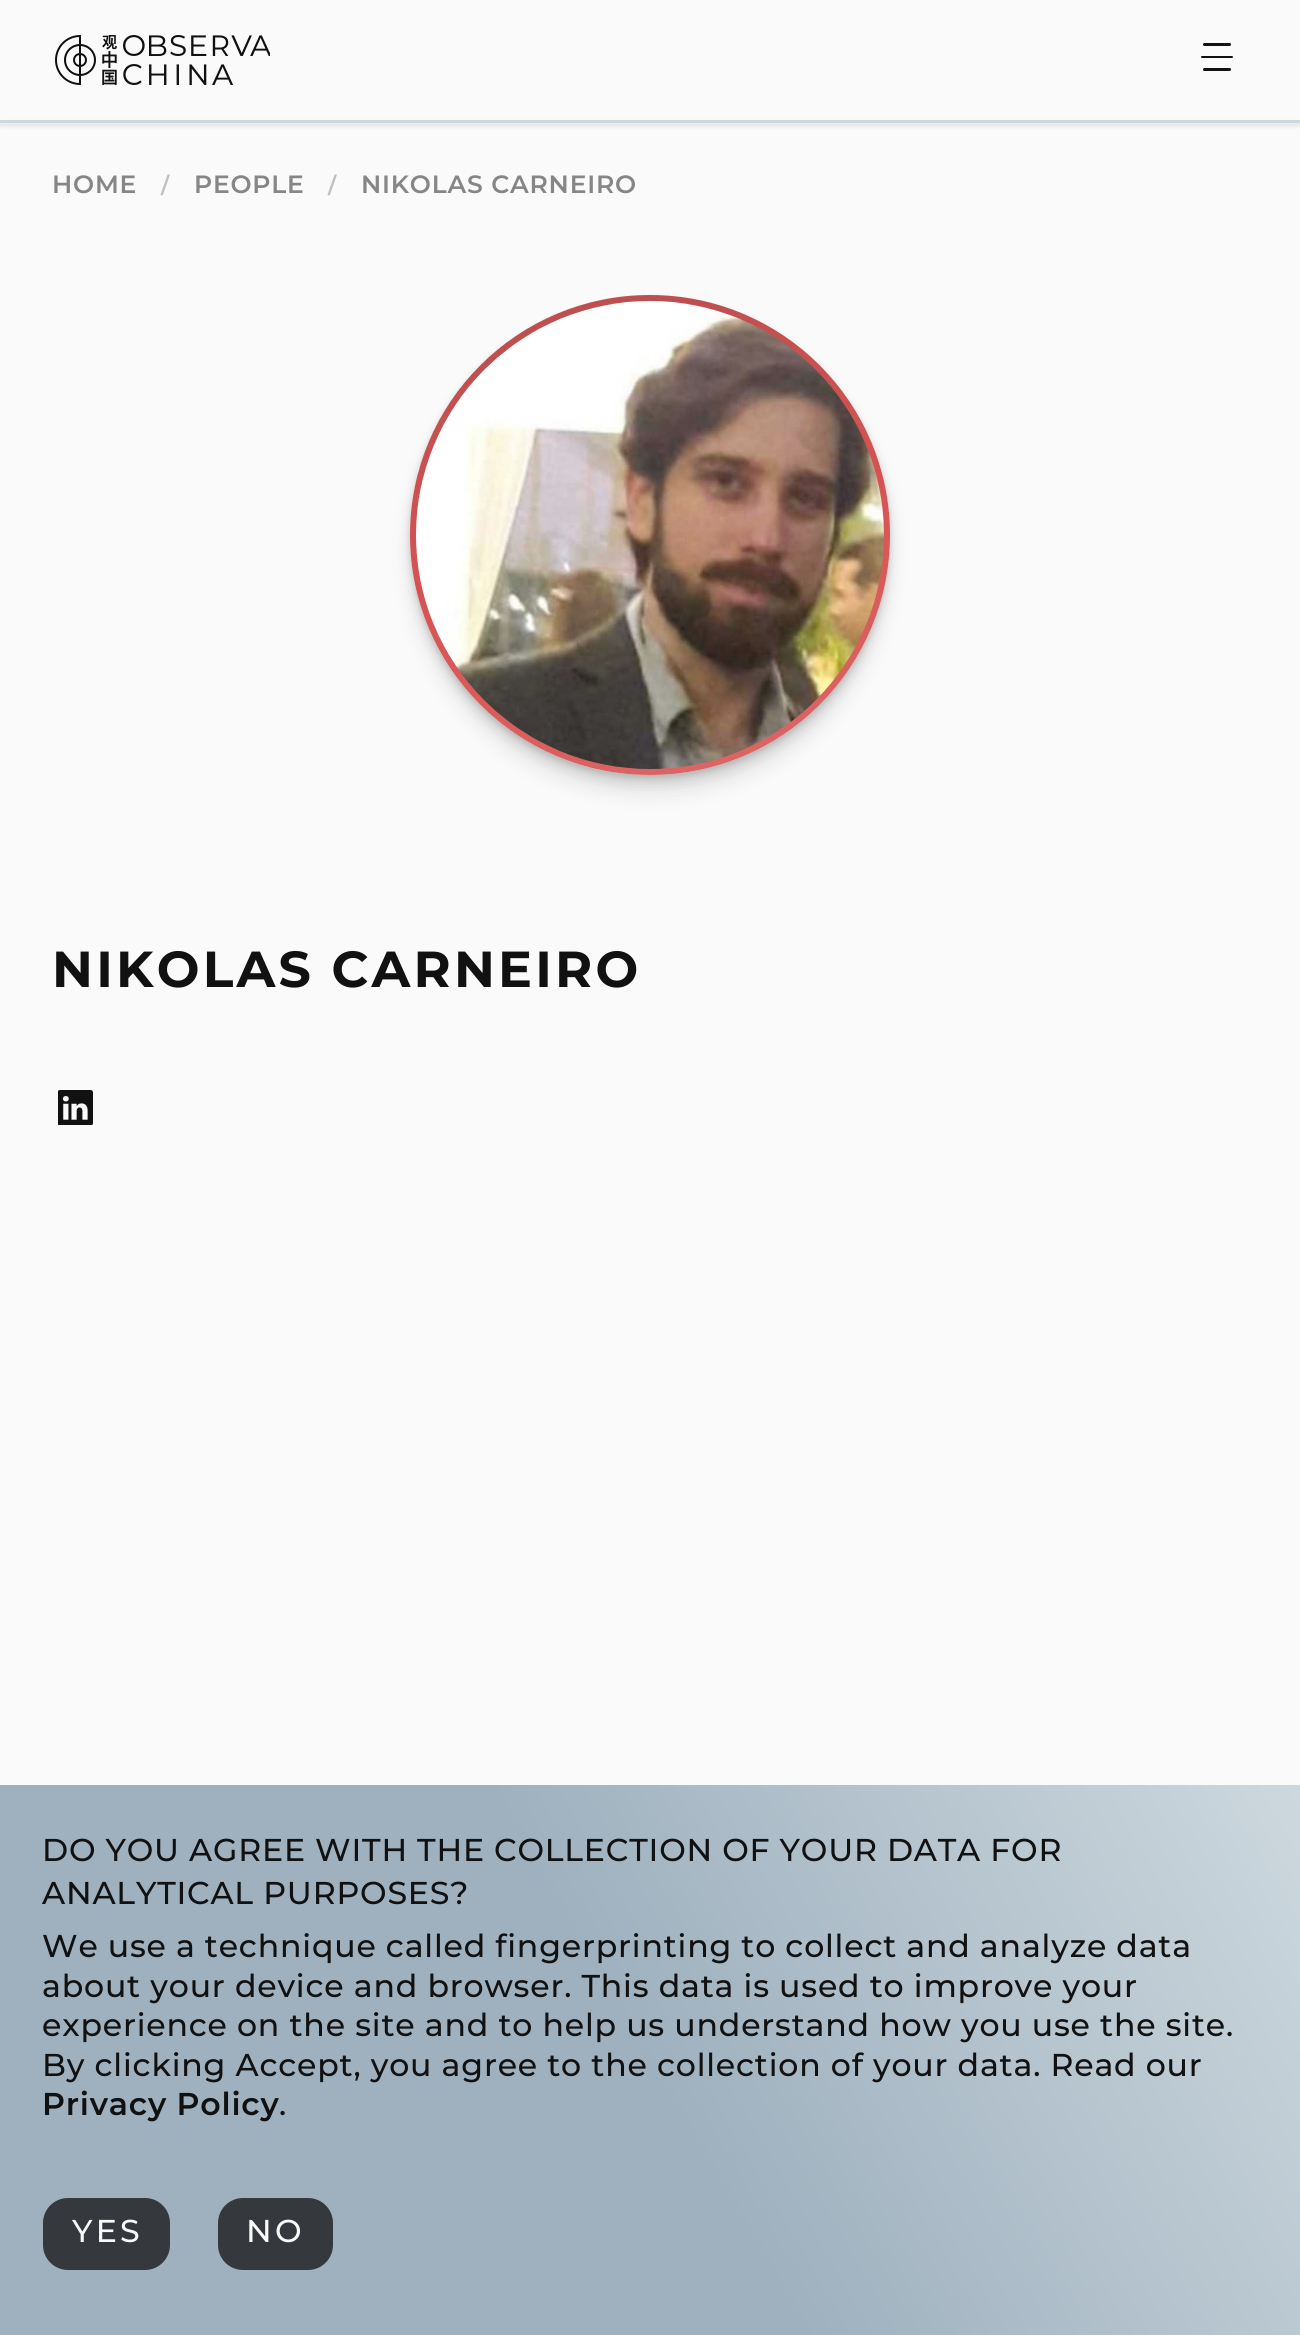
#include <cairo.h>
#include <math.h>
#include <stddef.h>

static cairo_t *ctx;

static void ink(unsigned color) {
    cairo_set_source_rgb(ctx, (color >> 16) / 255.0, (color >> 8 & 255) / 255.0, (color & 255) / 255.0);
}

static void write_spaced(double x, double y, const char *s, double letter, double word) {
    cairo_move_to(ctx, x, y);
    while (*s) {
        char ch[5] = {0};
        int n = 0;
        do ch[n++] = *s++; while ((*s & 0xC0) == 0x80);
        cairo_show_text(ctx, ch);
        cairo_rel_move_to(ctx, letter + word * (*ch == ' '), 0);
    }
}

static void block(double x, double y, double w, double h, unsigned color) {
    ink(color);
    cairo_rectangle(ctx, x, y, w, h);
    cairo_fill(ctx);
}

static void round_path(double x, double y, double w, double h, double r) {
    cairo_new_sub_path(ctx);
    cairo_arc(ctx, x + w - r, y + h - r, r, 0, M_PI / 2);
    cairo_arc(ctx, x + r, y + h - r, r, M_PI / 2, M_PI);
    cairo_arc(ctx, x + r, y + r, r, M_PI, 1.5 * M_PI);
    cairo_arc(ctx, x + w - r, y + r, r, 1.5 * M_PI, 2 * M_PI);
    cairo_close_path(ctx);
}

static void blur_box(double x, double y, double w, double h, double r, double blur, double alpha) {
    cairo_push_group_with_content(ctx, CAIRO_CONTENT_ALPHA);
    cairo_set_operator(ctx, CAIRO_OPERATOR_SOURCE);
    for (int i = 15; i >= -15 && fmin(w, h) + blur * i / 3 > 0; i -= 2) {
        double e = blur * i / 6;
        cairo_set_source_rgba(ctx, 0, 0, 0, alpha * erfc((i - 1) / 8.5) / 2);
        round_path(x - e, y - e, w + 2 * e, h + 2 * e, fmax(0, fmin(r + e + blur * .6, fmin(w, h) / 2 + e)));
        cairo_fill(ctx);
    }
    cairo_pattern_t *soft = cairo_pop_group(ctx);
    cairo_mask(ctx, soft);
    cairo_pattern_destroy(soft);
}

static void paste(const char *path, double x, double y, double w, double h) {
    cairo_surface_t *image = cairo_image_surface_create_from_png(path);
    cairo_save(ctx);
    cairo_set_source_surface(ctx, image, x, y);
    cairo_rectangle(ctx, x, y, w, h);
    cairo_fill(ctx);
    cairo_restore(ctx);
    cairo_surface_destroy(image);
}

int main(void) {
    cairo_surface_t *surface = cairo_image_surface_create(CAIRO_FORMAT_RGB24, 1300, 2335);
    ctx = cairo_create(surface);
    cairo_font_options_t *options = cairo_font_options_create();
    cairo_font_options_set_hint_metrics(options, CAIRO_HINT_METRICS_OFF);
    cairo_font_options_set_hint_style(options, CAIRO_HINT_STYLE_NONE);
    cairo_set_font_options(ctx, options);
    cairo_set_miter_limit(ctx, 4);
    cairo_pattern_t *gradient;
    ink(0xfafafa);
    cairo_paint(ctx);
    paste("pic1.png", 55, 35, 215, 50);
    ink(0x111111);
    round_path(1203, 43, 28, 3, 1.5);
    cairo_fill(ctx);
    round_path(1201, 56, 32, 2, 1);
    cairo_fill(ctx);
    round_path(1203, 68, 28, 3, 1.5);
    cairo_fill(ctx);
    ink(0x000000);
    blur_box(0, 123, 1300, 3, 2.5, 2.5, 0.1);
    block(0, 120, 1300, 3, 0xcdd8de);
    cairo_select_font_face(ctx, "Montserrat SemiBold", CAIRO_FONT_SLANT_NORMAL, CAIRO_FONT_WEIGHT_NORMAL);
    cairo_set_font_size(ctx, 25);
    ink(0x868686);
    write_spaced(52, 193, "HOME", 0.8, 0);
    cairo_set_font_size(ctx, 22);
    ink(0xc0c0c0);
    write_spaced(161, 193, "/", 0.8, 0);
    cairo_set_font_size(ctx, 25);
    ink(0x868686);
    write_spaced(194, 193, "PEOPLE", 0.8, 0);
    cairo_set_font_size(ctx, 22);
    ink(0xc0c0c0);
    write_spaced(328, 193, "/", 0.8, 0);
    cairo_set_font_size(ctx, 25);
    ink(0x868686);
    write_spaced(361, 193, "NIKOLAS CARNEIRO", 0.8, 0);
    ink(0x000000);
    blur_box(410, 313, 480, 480, 240, 10, 0.1);
    blur_box(410, 303, 480, 480, 240, 5, 0.1);
    blur_box(410, 298, 480, 480, 240, 2.5, 0.1);
    ink(0xfafafa);
    cairo_arc(ctx, 650, 535, 240, 0, 2 * M_PI);
    cairo_fill(ctx);
    gradient = cairo_pattern_create_linear(726, 819, 574, 251);
    cairo_pattern_add_color_stop_rgba(gradient, 0, 0.82, 0.216, 0.216, 0.75);
    cairo_pattern_add_color_stop_rgba(gradient, 0.5, 0.792, 0.102, 0.102, 0.75);
    cairo_pattern_add_color_stop_rgba(gradient, 1, 0.624, 0.078, 0.078, 0.75);
    cairo_set_source(ctx, gradient);
    cairo_pattern_destroy(gradient);
    cairo_arc(ctx, 650, 535, 240, 0, 2 * M_PI);
    cairo_fill(ctx);
    paste("pic2.png", 416, 301, 468, 468);
    cairo_select_font_face(ctx, "Montserrat", CAIRO_FONT_SLANT_NORMAL, CAIRO_FONT_WEIGHT_BOLD);
    cairo_set_font_size(ctx, 50.6);
    ink(0x111111);
    write_spaced(52, 987, "NIKOLAS CARNEIRO", 3.25, 0);
    paste("pic3.png", 58, 1090, 35, 35);
    gradient = cairo_pattern_create_linear(43, 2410, 1257, 1710);
    cairo_pattern_add_color_stop_rgba(gradient, 0, 0.624, 0.694, 0.749, 1);
    cairo_pattern_add_color_stop_rgba(gradient, 0.5, 0.624, 0.694, 0.749, 1);
    cairo_pattern_add_color_stop_rgba(gradient, 1, 0.804, 0.847, 0.871, 1);
    cairo_set_source(ctx, gradient);
    cairo_pattern_destroy(gradient);
    cairo_rectangle(ctx, 0, 1785, 1300, 550);
    cairo_fill(ctx);
    cairo_select_font_face(ctx, "Montserrat Medium", CAIRO_FONT_SLANT_NORMAL, CAIRO_FONT_WEIGHT_NORMAL);
    cairo_set_font_size(ctx, 31.6);
    ink(0x111111);
    write_spaced(42, 1861, "DO YOU AGREE WITH THE COLLECTION OF YOUR DATA FOR", 0.8, -0.1);
    write_spaced(42, 1904, "ANALYTICAL PURPOSES?", 0.8, 0);
    write_spaced(42, 1957, "We use a technique called fingerprinting to collect and analyze data", 0.8, -0.1);
    write_spaced(42, 1997, "about your device and browser. This data is used to improve your", 0.8, 0);
    write_spaced(42, 2036, "experience on the site and to help us understand how you use the site.", 0.8, 0);
    write_spaced(42, 2076, "By clicking Accept, you agree to the collection of your data. Read our", 0.8, 0);
    cairo_select_font_face(ctx, "Montserrat SemiBold", CAIRO_FONT_SLANT_NORMAL, CAIRO_FONT_WEIGHT_NORMAL);
    write_spaced(42, 2115, "Privacy Policy", 0.8, 0);
    cairo_select_font_face(ctx, "Montserrat Medium", CAIRO_FONT_SLANT_NORMAL, CAIRO_FONT_WEIGHT_NORMAL);
    write_spaced(279, 2115, ".", 0.8, 0);
    ink(0x35393d);
    round_path(43, 2198, 127, 72, 25);
    cairo_fill(ctx);
    cairo_select_font_face(ctx, "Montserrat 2 Medium", CAIRO_FONT_SLANT_NORMAL, CAIRO_FONT_WEIGHT_NORMAL);
    ink(0xfafafa);
    write_spaced(72, 2242, "YES", 3.25, 0);
    ink(0x35393d);
    round_path(218, 2198, 115, 72, 25);
    cairo_fill(ctx);
    ink(0xfafafa);
    write_spaced(246, 2242, "NO", 3.25, 0);
    cairo_surface_write_to_png(surface, "screenshot.png");
    cairo_font_options_destroy(options);
    cairo_destroy(ctx);
    cairo_surface_destroy(surface);
    return 0;
}
